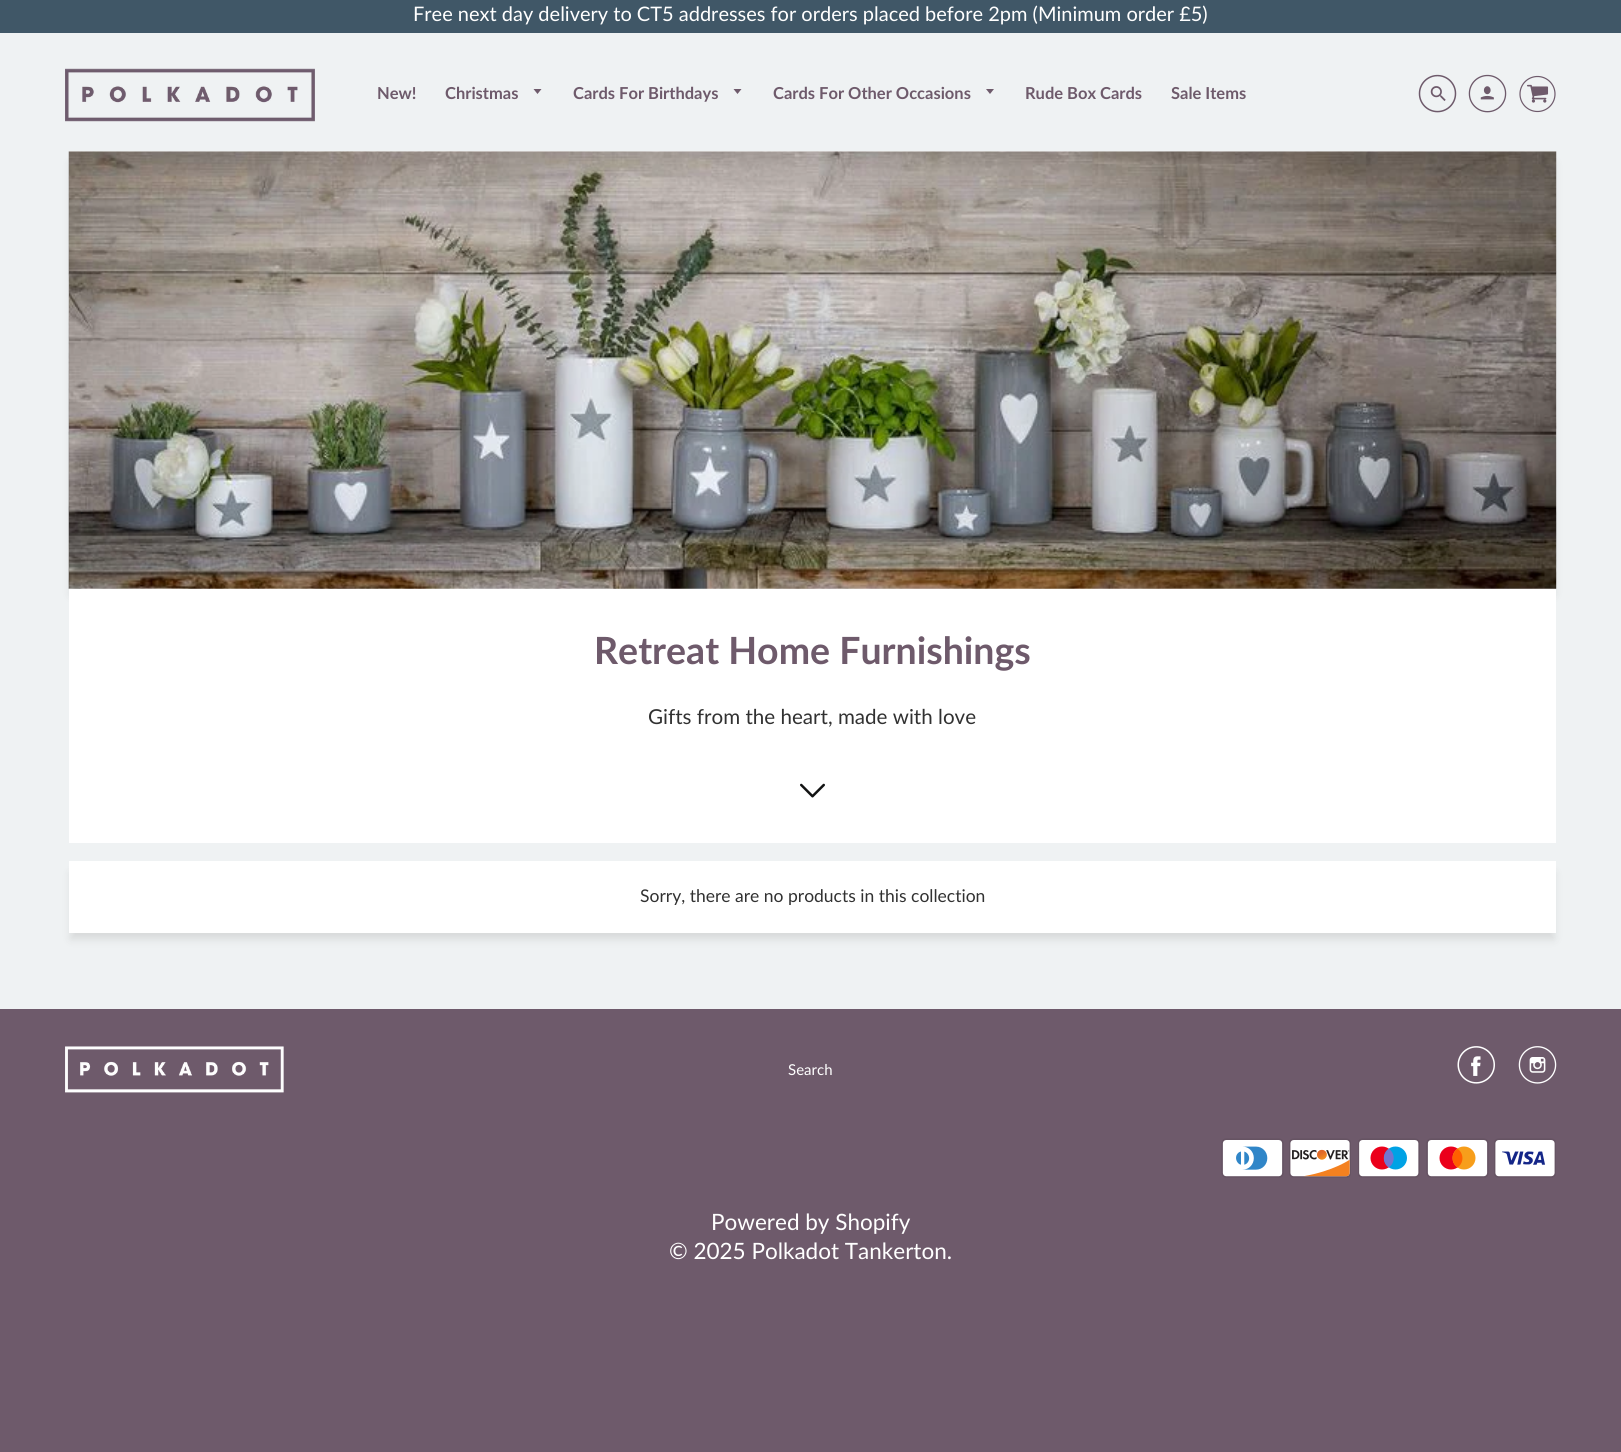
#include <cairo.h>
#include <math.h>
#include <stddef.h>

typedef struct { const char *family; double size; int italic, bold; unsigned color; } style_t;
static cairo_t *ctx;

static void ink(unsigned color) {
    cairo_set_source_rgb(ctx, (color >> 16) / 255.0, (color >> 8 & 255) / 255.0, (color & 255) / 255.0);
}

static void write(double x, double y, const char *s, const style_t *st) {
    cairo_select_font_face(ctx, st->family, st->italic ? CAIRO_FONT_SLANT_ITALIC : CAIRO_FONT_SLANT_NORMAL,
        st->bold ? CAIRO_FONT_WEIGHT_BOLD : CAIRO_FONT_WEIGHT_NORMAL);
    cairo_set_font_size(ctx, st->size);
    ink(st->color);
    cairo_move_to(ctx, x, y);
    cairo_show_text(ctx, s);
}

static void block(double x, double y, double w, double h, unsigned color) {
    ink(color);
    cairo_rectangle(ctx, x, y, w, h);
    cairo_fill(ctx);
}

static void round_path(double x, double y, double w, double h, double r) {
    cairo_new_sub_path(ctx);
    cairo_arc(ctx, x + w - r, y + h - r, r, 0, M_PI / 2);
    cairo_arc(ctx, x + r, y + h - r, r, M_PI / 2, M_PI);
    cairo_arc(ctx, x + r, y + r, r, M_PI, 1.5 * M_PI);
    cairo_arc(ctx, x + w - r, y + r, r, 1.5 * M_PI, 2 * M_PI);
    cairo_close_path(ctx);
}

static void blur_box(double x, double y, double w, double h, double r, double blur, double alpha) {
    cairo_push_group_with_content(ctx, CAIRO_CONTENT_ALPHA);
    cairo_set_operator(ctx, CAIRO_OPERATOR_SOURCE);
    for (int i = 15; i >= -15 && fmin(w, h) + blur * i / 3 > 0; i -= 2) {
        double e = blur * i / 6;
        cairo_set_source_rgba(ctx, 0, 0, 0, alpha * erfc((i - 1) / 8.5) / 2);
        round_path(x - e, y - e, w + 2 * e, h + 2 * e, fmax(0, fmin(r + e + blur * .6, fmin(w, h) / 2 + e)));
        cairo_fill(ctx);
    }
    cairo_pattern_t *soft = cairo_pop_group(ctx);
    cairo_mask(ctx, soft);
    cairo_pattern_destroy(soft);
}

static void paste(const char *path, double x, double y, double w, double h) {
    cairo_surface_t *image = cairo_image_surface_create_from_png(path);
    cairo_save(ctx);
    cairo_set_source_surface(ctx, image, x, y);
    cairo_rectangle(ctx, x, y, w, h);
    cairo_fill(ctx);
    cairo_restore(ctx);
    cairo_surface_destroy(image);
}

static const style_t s1 = {"Lato", 20, 0, 0, 0xffffff};
static const style_t s2 = {"Lato", 16.5, 0, 1, 0x6e5a6b};
static const style_t s3 = {"Lato", 37.5, 0, 1, 0x6e5a6b};
static const style_t s4 = {"Lato", 20.6, 0, 0, 0x313131};
static const style_t s5 = {"Lato", 17.5, 0, 0, 0x313131};
static const style_t s6 = {"Lato", 15, 0, 0, 0xffffff};
static const style_t s7 = {"Lato", 22.5, 0, 0, 0xffffff};

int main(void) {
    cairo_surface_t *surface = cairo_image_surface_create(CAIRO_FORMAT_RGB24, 1621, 1452);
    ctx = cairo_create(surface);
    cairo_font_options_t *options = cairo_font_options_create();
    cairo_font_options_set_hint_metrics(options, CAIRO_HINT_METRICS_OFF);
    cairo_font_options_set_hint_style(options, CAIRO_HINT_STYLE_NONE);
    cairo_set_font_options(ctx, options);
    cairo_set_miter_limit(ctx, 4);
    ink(0x6e5a6b);
    cairo_paint(ctx);
    block(0, 33, 1621, 976, 0xeff2f3);
    block(0, 0, 1621, 33, 0x405767);
    write(413, 21, "Free next day delivery to CT5 addresses for orders placed before 2pm (Minimum order £5)", &s1);
    paste("pic1.png", 65, 68, 250, 54);
    write(377, 99, "New!", &s2);
    write(445, 99, "Christmas", &s2);
    cairo_new_path(ctx);
    cairo_move_to(ctx, 533.5, 89);
    cairo_line_to(ctx, 537.5, 94);
    cairo_line_to(ctx, 541.5, 89);
    cairo_close_path(ctx);
    cairo_fill(ctx);
    write(573, 99, "Cards For Birthdays", &s2);
    cairo_new_path(ctx);
    cairo_move_to(ctx, 733.5, 89);
    cairo_line_to(ctx, 737.5, 94);
    cairo_line_to(ctx, 741.5, 89);
    cairo_close_path(ctx);
    cairo_fill(ctx);
    write(773, 99, "Cards For Other Occasions", &s2);
    cairo_new_path(ctx);
    cairo_move_to(ctx, 986, 89);
    cairo_line_to(ctx, 990, 94);
    cairo_line_to(ctx, 994, 89);
    cairo_close_path(ctx);
    cairo_fill(ctx);
    write(1025, 99, "Rude Box Cards", &s2);
    write(1171, 99, "Sale Items", &s2);
    paste("pic2.png", 1418, 74, 39, 39);
    paste("pic3.png", 1468, 74, 39, 39);
    paste("pic4.png", 1519, 75, 37, 38);
    ink(0xa3a3a3);
    blur_box(71, 163, 1483, 432, 0, 4.5, 0.32);
    block(69, 151, 1487, 692, 0xffffff);
    paste("pic5.png", 68, 151, 1489, 438);
    write(594, 664, "Retreat Home Furnishings", &s3);
    write(648, 724, "Gifts from the heart, made with love", &s4);
    paste("pic6.png", 800, 783, 25, 15);
    ink(0xa3a3a3);
    blur_box(71, 873, 1483, 66, 0, 4.5, 0.32);
    block(69, 861, 1487, 72, 0xffffff);
    write(640, 902, "Sorry, there are no products in this collection", &s5);
    paste("pic7.png", 65, 1046, 219, 47);
    write(788, 1075, "Search", &s6);
    paste("pic8.png", 1457, 1046, 38, 38);
    paste("pic9.png", 1518, 1046, 39, 38);
    paste("pic10.png", 1221, 1138, 63, 40);
    paste("pic11.png", 1289, 1138, 62, 40);
    paste("pic12.png", 1358, 1138, 62, 40);
    paste("pic13.png", 1426, 1138, 63, 40);
    paste("pic14.png", 1494, 1138, 62, 40);
    write(711, 1230, "Powered by Shopify", &s7);
    write(669, 1259, "© 2025 Polkadot Tankerton.", &s7);
    cairo_surface_write_to_png(surface, "screenshot.png");
    cairo_font_options_destroy(options);
    cairo_destroy(ctx);
    cairo_surface_destroy(surface);
    return 0;
}
